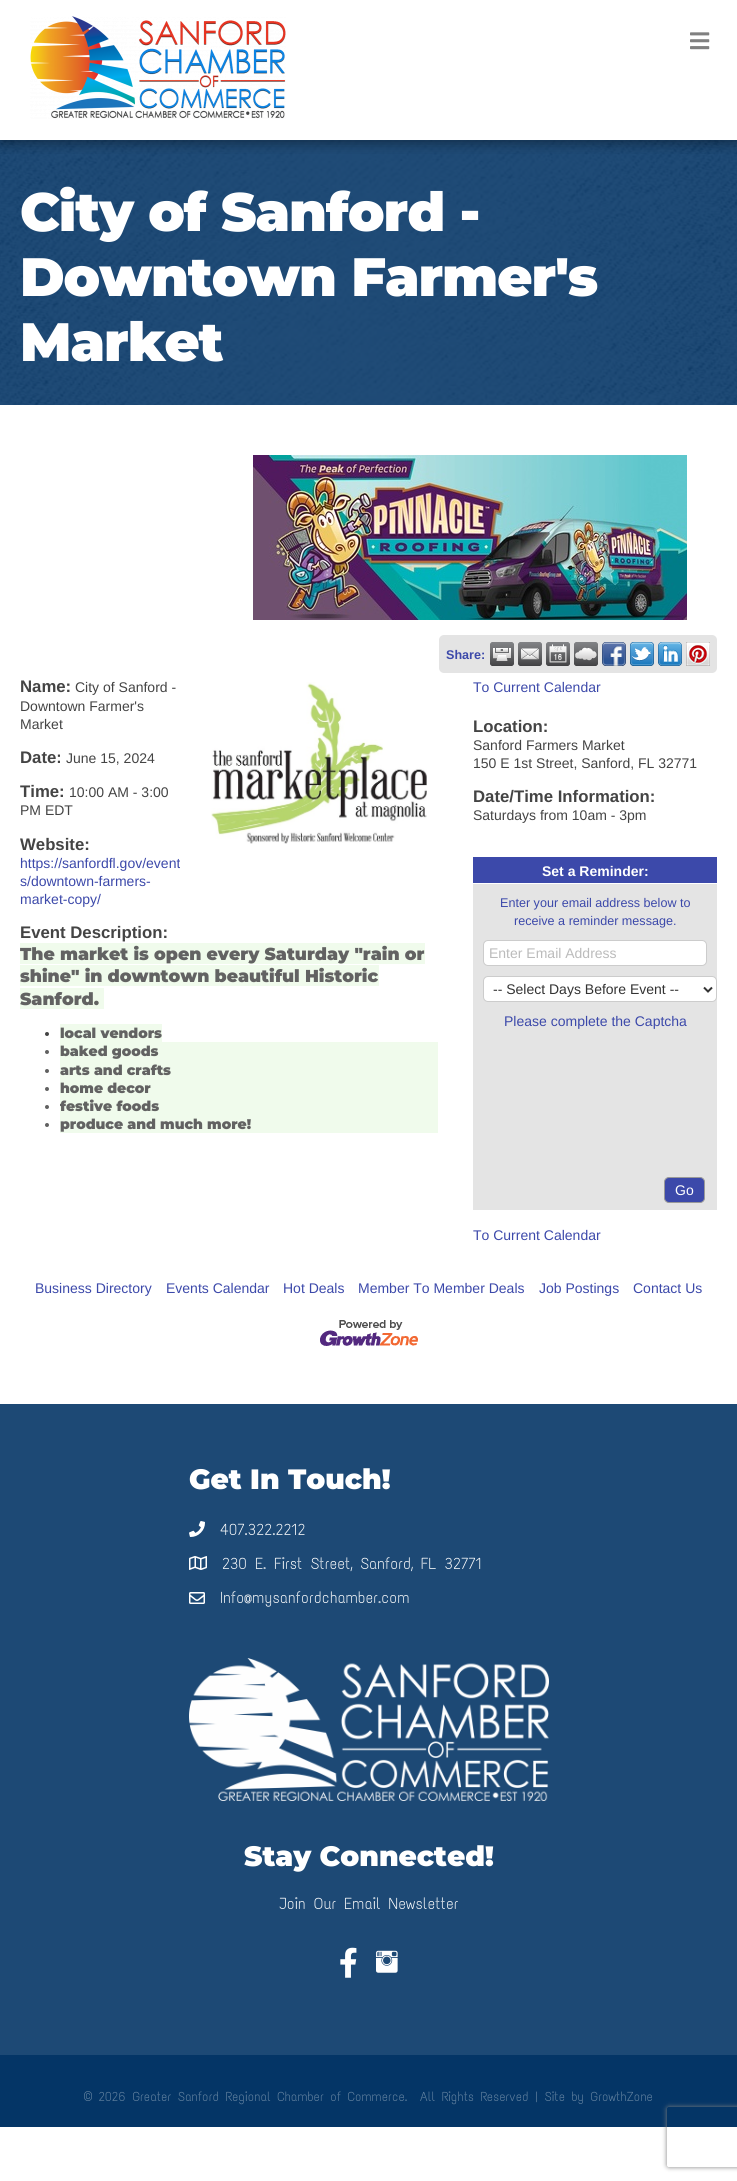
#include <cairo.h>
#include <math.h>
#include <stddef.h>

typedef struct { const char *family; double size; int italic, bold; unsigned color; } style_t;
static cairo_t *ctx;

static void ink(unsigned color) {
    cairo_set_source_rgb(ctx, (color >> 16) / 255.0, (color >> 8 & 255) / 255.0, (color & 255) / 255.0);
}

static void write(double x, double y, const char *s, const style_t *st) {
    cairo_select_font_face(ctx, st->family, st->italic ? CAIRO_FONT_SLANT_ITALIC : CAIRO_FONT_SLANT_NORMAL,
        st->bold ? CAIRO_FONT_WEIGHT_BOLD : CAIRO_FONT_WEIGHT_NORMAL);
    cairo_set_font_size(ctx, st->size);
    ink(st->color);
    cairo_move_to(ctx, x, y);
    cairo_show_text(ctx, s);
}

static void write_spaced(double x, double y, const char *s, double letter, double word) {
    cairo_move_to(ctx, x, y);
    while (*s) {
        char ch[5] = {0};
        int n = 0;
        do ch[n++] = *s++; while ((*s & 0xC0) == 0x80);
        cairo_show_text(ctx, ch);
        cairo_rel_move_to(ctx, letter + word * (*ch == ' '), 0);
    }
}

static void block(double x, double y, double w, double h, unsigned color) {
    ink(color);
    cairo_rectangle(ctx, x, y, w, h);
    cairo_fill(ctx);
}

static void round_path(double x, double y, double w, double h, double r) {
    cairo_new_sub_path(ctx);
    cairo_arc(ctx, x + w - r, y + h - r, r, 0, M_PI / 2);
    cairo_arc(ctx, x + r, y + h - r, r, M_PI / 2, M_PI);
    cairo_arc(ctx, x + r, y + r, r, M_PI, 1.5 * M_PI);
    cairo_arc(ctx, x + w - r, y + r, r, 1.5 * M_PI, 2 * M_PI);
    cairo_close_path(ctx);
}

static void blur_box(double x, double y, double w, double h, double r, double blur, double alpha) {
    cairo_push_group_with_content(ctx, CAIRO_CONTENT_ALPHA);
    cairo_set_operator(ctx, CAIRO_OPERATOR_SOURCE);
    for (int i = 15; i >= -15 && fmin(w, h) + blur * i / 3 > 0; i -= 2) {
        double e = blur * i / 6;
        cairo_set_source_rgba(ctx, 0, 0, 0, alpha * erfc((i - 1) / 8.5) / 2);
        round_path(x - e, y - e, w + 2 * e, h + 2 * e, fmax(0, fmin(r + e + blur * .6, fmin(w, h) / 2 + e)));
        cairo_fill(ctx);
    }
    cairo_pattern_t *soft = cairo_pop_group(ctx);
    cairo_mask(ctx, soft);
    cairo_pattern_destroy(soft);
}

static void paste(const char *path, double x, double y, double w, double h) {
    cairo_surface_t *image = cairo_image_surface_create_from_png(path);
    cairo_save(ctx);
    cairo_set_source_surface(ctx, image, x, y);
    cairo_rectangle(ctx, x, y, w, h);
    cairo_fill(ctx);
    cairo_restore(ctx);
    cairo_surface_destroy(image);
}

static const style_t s1 = {"Liberation Sans", 12.6, 0, 1, 0x3c49aa};
static const style_t s2 = {"Liberation Sans", 16.75, 0, 1, 0x444444};
static const style_t s3 = {"Liberation Sans", 14, 0, 0, 0x444444};
static const style_t s4 = {"Liberation Sans", 14, 0, 0, 0x3c49aa};
static const style_t s5 = {"Montserrat Thin", 17.3, 0, 0, 0x626262};
static const style_t s6 = {"Montserrat Thin", 14, 0, 0, 0x626262};
static const style_t s7 = {"Liberation Sans", 14, 0, 1, 0xffffff};
static const style_t s8 = {"Liberation Sans", 12.6, 0, 0, 0x3c49aa};
static const style_t s9 = {"Liberation Sans", 14, 0, 0, 0xbbbbbb};
static const style_t s10 = {"Liberation Sans", 14, 0, 0, 0x333333};
static const style_t s11 = {"Liberation Sans", 14, 0, 0, 0xffffff};
static const style_t s12 = {"Montserrat Thin", 28, 0, 0, 0xffffff};
static const style_t s13 = {"Text Me One", 16, 0, 0, 0xffffff};
static const style_t s14 = {"Text Me One", 13, 0, 0, 0x6886a3};

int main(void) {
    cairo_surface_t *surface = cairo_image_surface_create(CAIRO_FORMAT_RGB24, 737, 2181);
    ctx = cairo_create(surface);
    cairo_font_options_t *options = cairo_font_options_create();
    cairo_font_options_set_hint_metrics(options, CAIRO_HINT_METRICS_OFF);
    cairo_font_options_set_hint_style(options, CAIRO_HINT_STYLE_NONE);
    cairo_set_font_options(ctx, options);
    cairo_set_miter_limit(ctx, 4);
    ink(0xffffff);
    cairo_paint(ctx);
    paste("pic3.png", 0, 140, 737, 265);
    cairo_save(ctx);
    cairo_rectangle(ctx, 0, 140, 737, 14);
    cairo_clip(ctx);
    ink(0x000000);
    blur_box(1, 1, 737, 140, 0, 7.5, 0.5);
    cairo_restore(ctx);
    paste("pic1.png", 30, 16, 256, 103);
    paste("pic2.png", 690, 32, 20, 18);
    cairo_select_font_face(ctx, "Montserrat Thin", CAIRO_FONT_SLANT_NORMAL, CAIRO_FONT_WEIGHT_NORMAL);
    cairo_set_font_size(ctx, 54);
    ink(0xffffff);
    write_spaced(20, 231, "City of Sanford -", -1, 0);
    write_spaced(20, 296, "Downtown Farmer's", -1, 0);
    write_spaced(20, 361, "Market", -1, 0);
    paste("pic4.png", 253, 455, 434, 165);
    ink(0xe4e4e4);
    round_path(439, 635, 278, 38, 5);
    cairo_fill(ctx);
    write(446, 659, "Share:", &s1);
    paste("pic5.png", 490, 642, 24, 24);
    paste("pic6.png", 518, 642, 24, 24);
    paste("pic7.png", 546, 642, 24, 24);
    paste("pic8.png", 574, 642, 24, 24);
    paste("pic9.png", 602, 642, 24, 24);
    paste("pic10.png", 630, 642, 24, 24);
    paste("pic11.png", 658, 642, 24, 24);
    paste("pic12.png", 686, 642, 24, 24);
    write(20, 692, "Name:", &s2);
    write(75, 692, "City of Sanford -", &s3);
    write(20, 711, "Downtown Farmer's", &s3);
    write(20, 729, "Market", &s3);
    write(20, 763, "Date:", &s2);
    write(66, 763, "June 15, 2024", &s3);
    write(20, 797, "Time:", &s2);
    write(69, 797, "10:00 AM - 3:00", &s3);
    write(20, 815, "PM EDT", &s3);
    write(20, 850, "Website:", &s2);
    write(20, 868, "https://sanfordfl.gov/event", &s4);
    write(20, 886, "s/downtown-farmers-", &s4);
    write(20, 904, "market-copy/", &s4);
    paste("pic13.png", 211, 682, 216, 162);
    write(20, 938, "Event Description:", &s2);
    block(20, 943, 405, 21, 0xf0fbec);
    write(20, 960, "The market is open every Saturday \"rain or", &s5);
    block(20, 965, 359, 21, 0xf0fbec);
    write(20, 982, "shine\" in downtown beautiful Historic", &s5);
    block(20, 988, 84, 21, 0xf0fbec);
    write(20, 1005, "Sanford.", &s5);
    ink(0x444444);
    cairo_new_path(ctx);
    cairo_arc(ctx, 47, 1034, 2, 0, 2 * M_PI);
    cairo_fill(ctx);
    block(60, 1024, 102, 18, 0xf0fbec);
    write(60, 1038, "local vendors", &s6);
    block(60, 1042, 378, 91, 0xf0fbec);
    ink(0x616161);
    cairo_new_path(ctx);
    cairo_arc(ctx, 47, 1052, 2, 0, 2 * M_PI);
    cairo_fill(ctx);
    write(60, 1056, "baked goods", &s6);
    ink(0x616161);
    cairo_new_path(ctx);
    cairo_arc(ctx, 47, 1071, 2, 0, 2 * M_PI);
    cairo_fill(ctx);
    write(60, 1075, "arts and crafts", &s6);
    ink(0x616161);
    cairo_new_path(ctx);
    cairo_arc(ctx, 47, 1089, 2, 0, 2 * M_PI);
    cairo_fill(ctx);
    write(60, 1093, "home decor", &s6);
    ink(0x616161);
    cairo_new_path(ctx);
    cairo_arc(ctx, 47, 1107, 2, 0, 2 * M_PI);
    cairo_fill(ctx);
    write(60, 1111, "festive foods", &s6);
    ink(0x616161);
    cairo_new_path(ctx);
    cairo_arc(ctx, 47, 1125, 2, 0, 2 * M_PI);
    cairo_fill(ctx);
    write(60, 1129, "produce and much more!", &s6);
    write(473, 692, "To Current Calendar", &s4);
    write(473, 732, "Location:", &s2);
    write(473, 750, "Sanford Farmers Market", &s3);
    write(473, 768, "150 E 1st Street, Sanford, FL 32771", &s3);
    write(473, 802, "Date/Time Information:", &s2);
    write(473, 820, "Saturdays from 10am - 3pm", &s3);
    block(473, 884, 244, 326, 0xe4e4e4);
    block(473, 857, 244, 26, 0x3c49aa);
    write(542, 876, "Set a Reminder:", &s7);
    write(500, 907, "Enter your email address below to", &s8);
    write(514, 925, "receive a reminder message.", &s8);
    ink(0xffffff);
    round_path(483.5, 940.5, 223, 25, 4.5);
    cairo_fill_preserve(ctx);
    ink(0xcccccc);
    cairo_set_line_width(ctx, 1);
    cairo_stroke(ctx);
    write(489, 958, "Enter Email Address", &s9);
    ink(0xffffff);
    round_path(483.5, 976.5, 233, 25, 4.5);
    cairo_fill_preserve(ctx);
    ink(0xcccccc);
    cairo_stroke(ctx);
    cairo_new_path(ctx);
    cairo_move_to(ctx, 704, 987.5);
    cairo_line_to(ctx, 708, 991.5);
    cairo_line_to(ctx, 712, 987.5);
    ink(0x333333);
    cairo_set_line_width(ctx, 2);
    cairo_stroke(ctx);
    write(493, 994, "-- Select Days Before Event --", &s10);
    write(504, 1026, "Please complete the Captcha", &s4);
    round_path(664.5, 1177.5, 40, 25, 4.5);
    cairo_fill_preserve(ctx);
    ink(0x999999);
    cairo_set_line_width(ctx, 1);
    cairo_stroke(ctx);
    write(675, 1195, "Go", &s11);
    write(473, 1240, "To Current Calendar", &s4);
    write(35, 1293, "Business Directory", &s4);
    write(166, 1293, "Events Calendar", &s4);
    write(283, 1293, "Hot Deals", &s4);
    write(358, 1293, "Member To Member Deals", &s4);
    write(539, 1293, "Job Postings", &s4);
    write(633, 1293, "Contact Us", &s4);
    paste("pic14.png", 320, 1320, 98, 26);
    block(0, 1404, 737, 651, 0x1d4975);
    write(189, 1489, "Get In Touch!", &s12);
    paste("pic15.png", 189, 1521, 16, 16);
    write(220, 1535, "407.322.2212", &s13);
    paste("pic16.png", 189, 1556, 18, 14);
    write(222, 1569, "230 E. First Street, Sanford, FL 32771", &s13);
    paste("pic17.png", 189, 1592, 16, 12);
    write(220, 1603, "Info@mysanfordchamber.com", &s13);
    paste("pic18.png", 189, 1658, 360, 143);
    write(244, 1866, "Stay Connected!", &s12);
    write(279, 1909, "Join Our Email Newsletter", &s13);
    paste("pic19.png", 340, 1947, 17, 31);
    paste("pic20.png", 376, 1950, 22, 23);
    block(0, 2055, 737, 72, 0x043566);
    write(84, 2101, "© 2026 Greater Sanford Regional Chamber of Commerce.", &s14);
    write(420, 2101, "All Rights Reserved | Site by GrowthZone", &s14);
    cairo_save(ctx);
    cairo_set_fill_rule(ctx, CAIRO_FILL_RULE_EVEN_ODD);
    cairo_new_path(ctx);
    cairo_move_to(ctx, 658, 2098);
    cairo_line_to(ctx, 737, 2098);
    cairo_line_to(ctx, 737, 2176);
    cairo_line_to(ctx, 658, 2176);
    cairo_close_path(ctx);
    cairo_move_to(ctx, 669, 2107);
    cairo_line_to(ctx, 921, 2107);
    cairo_curve_to(ctx, 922, 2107, 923, 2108, 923, 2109);
    cairo_line_to(ctx, 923, 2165);
    cairo_curve_to(ctx, 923, 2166, 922, 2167, 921, 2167);
    cairo_line_to(ctx, 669, 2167);
    cairo_curve_to(ctx, 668, 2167, 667, 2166, 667, 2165);
    cairo_line_to(ctx, 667, 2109);
    cairo_curve_to(ctx, 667, 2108, 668, 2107, 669, 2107);
    cairo_close_path(ctx);
    cairo_clip(ctx);
    ink(0x808080);
    blur_box(667, 2107, 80, 60, 2, 2.5, 1);
    cairo_restore(ctx);
    cairo_surface_write_to_png(surface, "screenshot.png");
    cairo_font_options_destroy(options);
    cairo_destroy(ctx);
    cairo_surface_destroy(surface);
    return 0;
}
